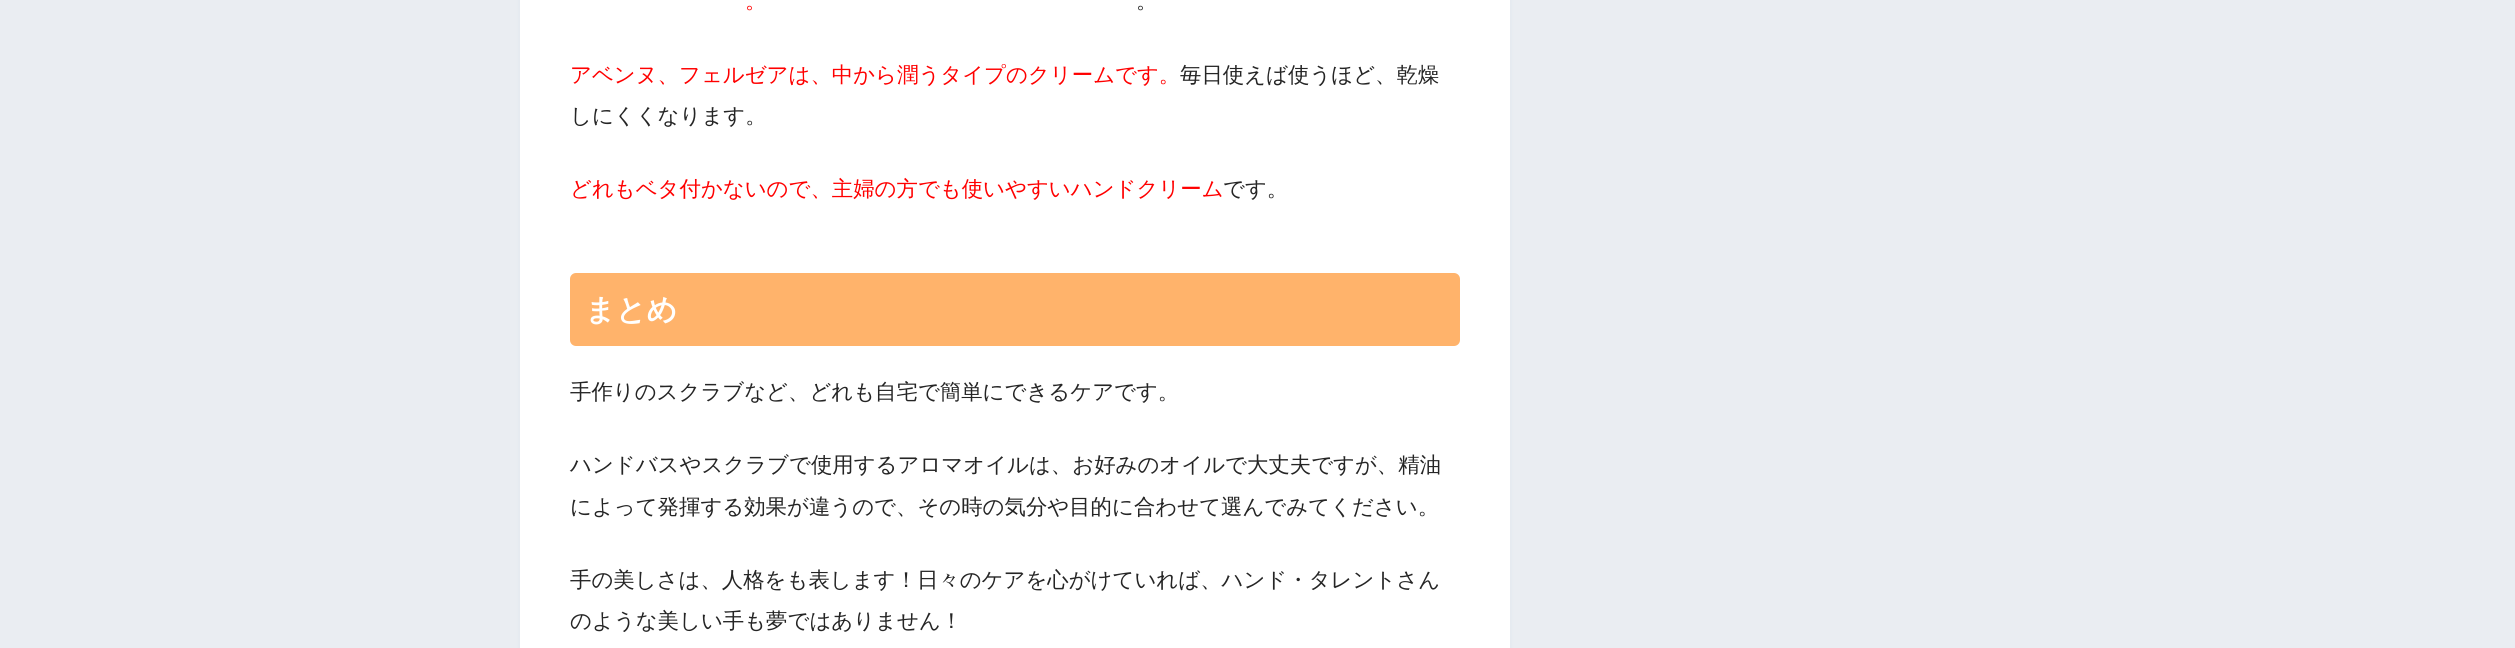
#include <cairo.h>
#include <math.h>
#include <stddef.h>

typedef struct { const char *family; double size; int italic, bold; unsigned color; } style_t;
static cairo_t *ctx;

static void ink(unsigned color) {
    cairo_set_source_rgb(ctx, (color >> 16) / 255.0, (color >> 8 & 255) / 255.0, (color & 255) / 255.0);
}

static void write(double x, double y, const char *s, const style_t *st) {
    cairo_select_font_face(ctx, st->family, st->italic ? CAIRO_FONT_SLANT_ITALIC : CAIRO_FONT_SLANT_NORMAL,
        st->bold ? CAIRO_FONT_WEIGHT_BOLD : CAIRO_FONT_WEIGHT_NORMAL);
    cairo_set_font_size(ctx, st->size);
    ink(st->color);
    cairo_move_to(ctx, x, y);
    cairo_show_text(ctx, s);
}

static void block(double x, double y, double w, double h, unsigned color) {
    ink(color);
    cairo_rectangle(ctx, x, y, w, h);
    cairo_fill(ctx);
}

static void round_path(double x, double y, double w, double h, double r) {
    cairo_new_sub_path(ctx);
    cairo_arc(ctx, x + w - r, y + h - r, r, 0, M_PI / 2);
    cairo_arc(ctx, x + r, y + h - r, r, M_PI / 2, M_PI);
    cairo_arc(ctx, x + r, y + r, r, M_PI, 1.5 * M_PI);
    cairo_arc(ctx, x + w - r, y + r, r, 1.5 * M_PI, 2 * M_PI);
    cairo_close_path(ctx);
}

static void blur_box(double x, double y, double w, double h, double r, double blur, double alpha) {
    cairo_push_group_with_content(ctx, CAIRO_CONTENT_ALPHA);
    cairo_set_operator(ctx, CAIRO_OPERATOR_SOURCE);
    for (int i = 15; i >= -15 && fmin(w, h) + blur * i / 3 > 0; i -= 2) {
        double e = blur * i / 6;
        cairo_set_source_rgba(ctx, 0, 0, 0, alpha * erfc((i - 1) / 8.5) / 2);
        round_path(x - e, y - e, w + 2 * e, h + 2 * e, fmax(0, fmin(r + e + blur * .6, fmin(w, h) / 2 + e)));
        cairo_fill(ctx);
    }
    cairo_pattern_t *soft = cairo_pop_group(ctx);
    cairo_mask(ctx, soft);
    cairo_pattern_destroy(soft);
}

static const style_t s1 = {"WenQuanYi Zen Hei Medium", 21.4, 0, 0, 0xff0000};
static const style_t s2 = {"WenQuanYi Zen Hei Medium", 21.4, 0, 0, 0x252525};
static const style_t s3 = {"WenQuanYi Zen Hei", 30, 0, 1, 0xffffff};

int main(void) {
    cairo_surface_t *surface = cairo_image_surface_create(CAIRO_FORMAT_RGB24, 2515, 648);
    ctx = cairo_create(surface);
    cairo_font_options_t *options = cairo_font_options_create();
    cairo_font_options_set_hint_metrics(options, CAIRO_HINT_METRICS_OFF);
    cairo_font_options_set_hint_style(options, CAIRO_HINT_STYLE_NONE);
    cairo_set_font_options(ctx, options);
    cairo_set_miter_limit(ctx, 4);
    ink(0xeaedf2);
    cairo_paint(ctx);
    ink(0x4385bb);
    blur_box(520, -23, 990, 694, 15, 2.5, 0.07);
    block(520, 0, 990, 648, 0xffffff);
    write(745, 8, "。", &s1);
    write(1136, 8, "。", &s2);
    write(570, 82, "アベンヌ、フェルゼアは、中から潤うタイプのクリームです。", &s1);
    write(1180, 82, "毎日使えば使うほど、乾燥", &s2);
    write(570, 123, "しにくくなります。", &s2);
    write(570, 196, "どれもベタ付かないので、主婦の方でも使いやすいハンドクリーム", &s1);
    write(1223, 196, "です。", &s2);
    ink(0xffb36b);
    round_path(570, 273, 890, 73, 6);
    cairo_fill(ctx);
    write(585, 320, "まとめ", &s3);
    write(570, 399, "手作りのスクラブなど、どれも自宅で簡単にできるケアです。", &s2);
    write(570, 472, "ハンドバスやスクラブで使用するアロマオイルは、お好みのオイルで大丈夫ですが、精油", &s2);
    write(570, 514, "によって発揮する効果が違うので、その時の気分や目的に合わせて選んでみてください。", &s2);
    write(570, 587, "手の美しさは、人格をも表します！日々のケアを心がけていれば、ハンド・タレントさん", &s2);
    write(570, 628, "のような美しい手も夢ではありません！", &s2);
    cairo_surface_write_to_png(surface, "screenshot.png");
    cairo_font_options_destroy(options);
    cairo_destroy(ctx);
    cairo_surface_destroy(surface);
    return 0;
}
